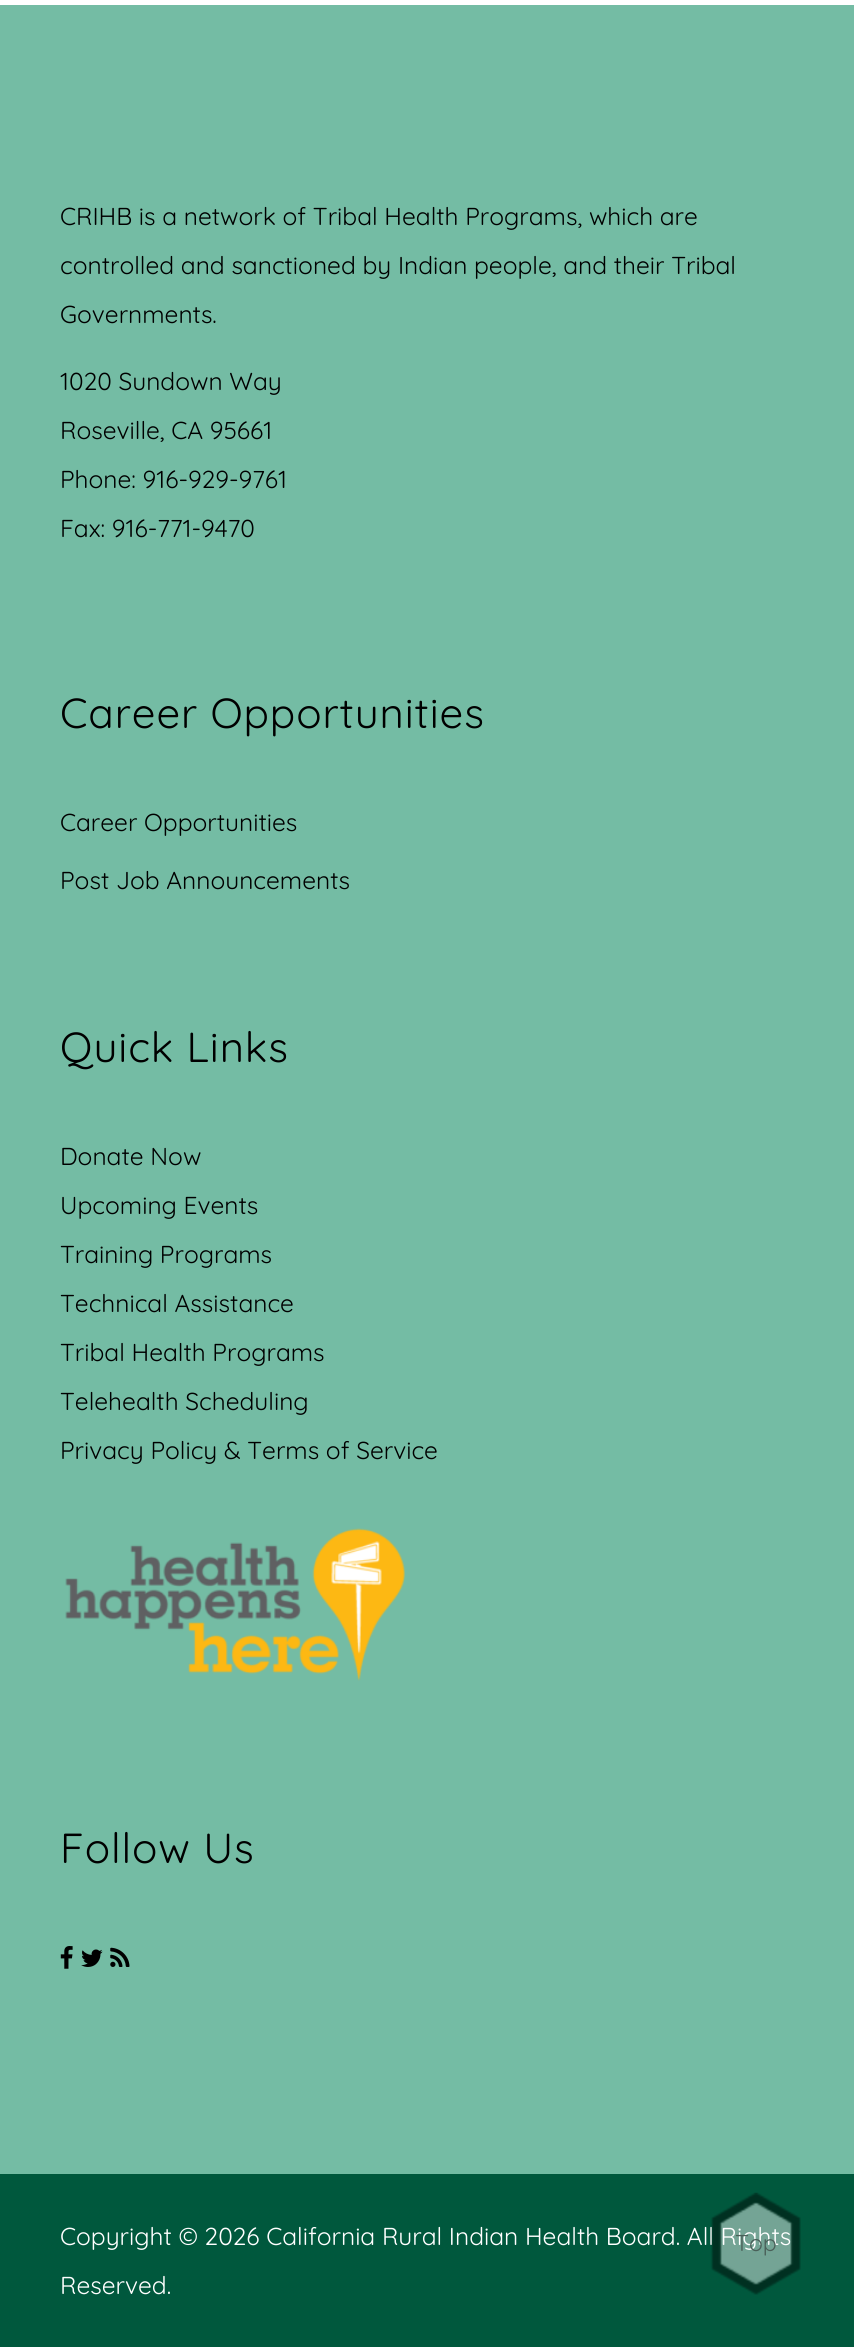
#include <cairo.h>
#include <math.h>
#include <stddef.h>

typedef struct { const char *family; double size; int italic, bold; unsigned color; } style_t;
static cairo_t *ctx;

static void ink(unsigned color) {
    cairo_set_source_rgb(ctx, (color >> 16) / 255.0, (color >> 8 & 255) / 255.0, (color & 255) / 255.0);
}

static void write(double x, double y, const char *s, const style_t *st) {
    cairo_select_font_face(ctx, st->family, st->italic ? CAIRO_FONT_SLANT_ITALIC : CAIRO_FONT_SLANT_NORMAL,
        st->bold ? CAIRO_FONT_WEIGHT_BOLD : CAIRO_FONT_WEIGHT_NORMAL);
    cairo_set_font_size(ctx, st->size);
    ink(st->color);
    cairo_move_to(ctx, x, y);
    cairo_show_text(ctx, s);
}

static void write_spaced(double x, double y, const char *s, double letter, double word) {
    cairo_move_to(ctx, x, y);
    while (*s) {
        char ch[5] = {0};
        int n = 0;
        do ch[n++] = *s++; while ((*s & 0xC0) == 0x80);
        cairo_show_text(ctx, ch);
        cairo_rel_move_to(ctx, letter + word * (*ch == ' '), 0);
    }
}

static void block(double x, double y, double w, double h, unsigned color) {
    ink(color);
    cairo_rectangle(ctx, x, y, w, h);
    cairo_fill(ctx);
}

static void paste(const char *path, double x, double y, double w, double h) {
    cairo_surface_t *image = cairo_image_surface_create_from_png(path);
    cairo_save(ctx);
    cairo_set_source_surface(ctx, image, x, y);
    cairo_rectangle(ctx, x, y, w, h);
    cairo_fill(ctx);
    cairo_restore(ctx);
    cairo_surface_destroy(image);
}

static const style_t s1 = {"Quicksand", 24.5, 0, 0, 0x000000};
static const style_t s2 = {"Quicksand", 24.5, 0, 0, 0xffffff};
static const style_t s3 = {"Quicksand", 23, 0, 0, 0x4a6059};

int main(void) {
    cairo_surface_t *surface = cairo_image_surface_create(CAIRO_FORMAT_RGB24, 854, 2347);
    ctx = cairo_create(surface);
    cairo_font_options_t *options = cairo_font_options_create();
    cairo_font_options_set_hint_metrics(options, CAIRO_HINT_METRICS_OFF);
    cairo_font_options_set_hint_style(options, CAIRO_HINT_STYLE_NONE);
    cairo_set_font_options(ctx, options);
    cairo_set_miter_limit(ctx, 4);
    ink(0xffffff);
    cairo_paint(ctx);
    block(0, 5, 854, 2169, 0x74bca4);
    write(60, 225, "CRIHB is a network of Tribal Health Programs, which are", &s1);
    write(60, 274, "controlled and sanctioned by Indian people, and their Tribal", &s1);
    write(60, 323, "Governments.", &s1);
    write(60, 390, "1020 Sundown Way", &s1);
    write(60, 439, "Roseville, CA 95661", &s1);
    write(60, 488, "Phone: 916-929-9761", &s1);
    write(60, 537, "Fax: 916-771-9470", &s1);
    cairo_set_font_size(ctx, 42);
    write_spaced(60, 728, "Career Opportunities", 0.9, 0);
    write(60, 831, "Career Opportunities", &s1);
    write(60, 889, "Post Job Announcements", &s1);
    cairo_set_font_size(ctx, 42);
    write_spaced(60, 1062, "Quick Links", 0.9, 0);
    write(60, 1165, "Donate Now", &s1);
    write(60, 1214, "Upcoming Events", &s1);
    write(60, 1263, "Training Programs", &s1);
    write(60, 1312, "Technical Assistance", &s1);
    write(60, 1361, "Tribal Health Programs", &s1);
    write(60, 1410, "Telehealth Scheduling", &s1);
    write(60, 1459, "Privacy Policy & Terms of Service", &s1);
    paste("pic1.png", 65, 1528, 340, 153);
    cairo_set_font_size(ctx, 42);
    write_spaced(60, 1863, "Follow Us", 0.9, 0);
    paste("pic2.png", 60, 1946, 13, 23);
    paste("pic3.png", 81, 1949, 22, 18);
    paste("pic4.png", 110, 1947, 20, 20);
    block(0, 2174, 854, 173, 0x00583d);
    write(60, 2245, "Copyright © 2026 California Rural Indian Health Board. All Rights", &s2);
    write(60, 2294, "Reserved.", &s2);
    paste("pic5.png", 710, 2192, 91, 103);
    write(735, 2251, "Top", &s3);
    cairo_surface_write_to_png(surface, "screenshot.png");
    cairo_font_options_destroy(options);
    cairo_destroy(ctx);
    cairo_surface_destroy(surface);
    return 0;
}
